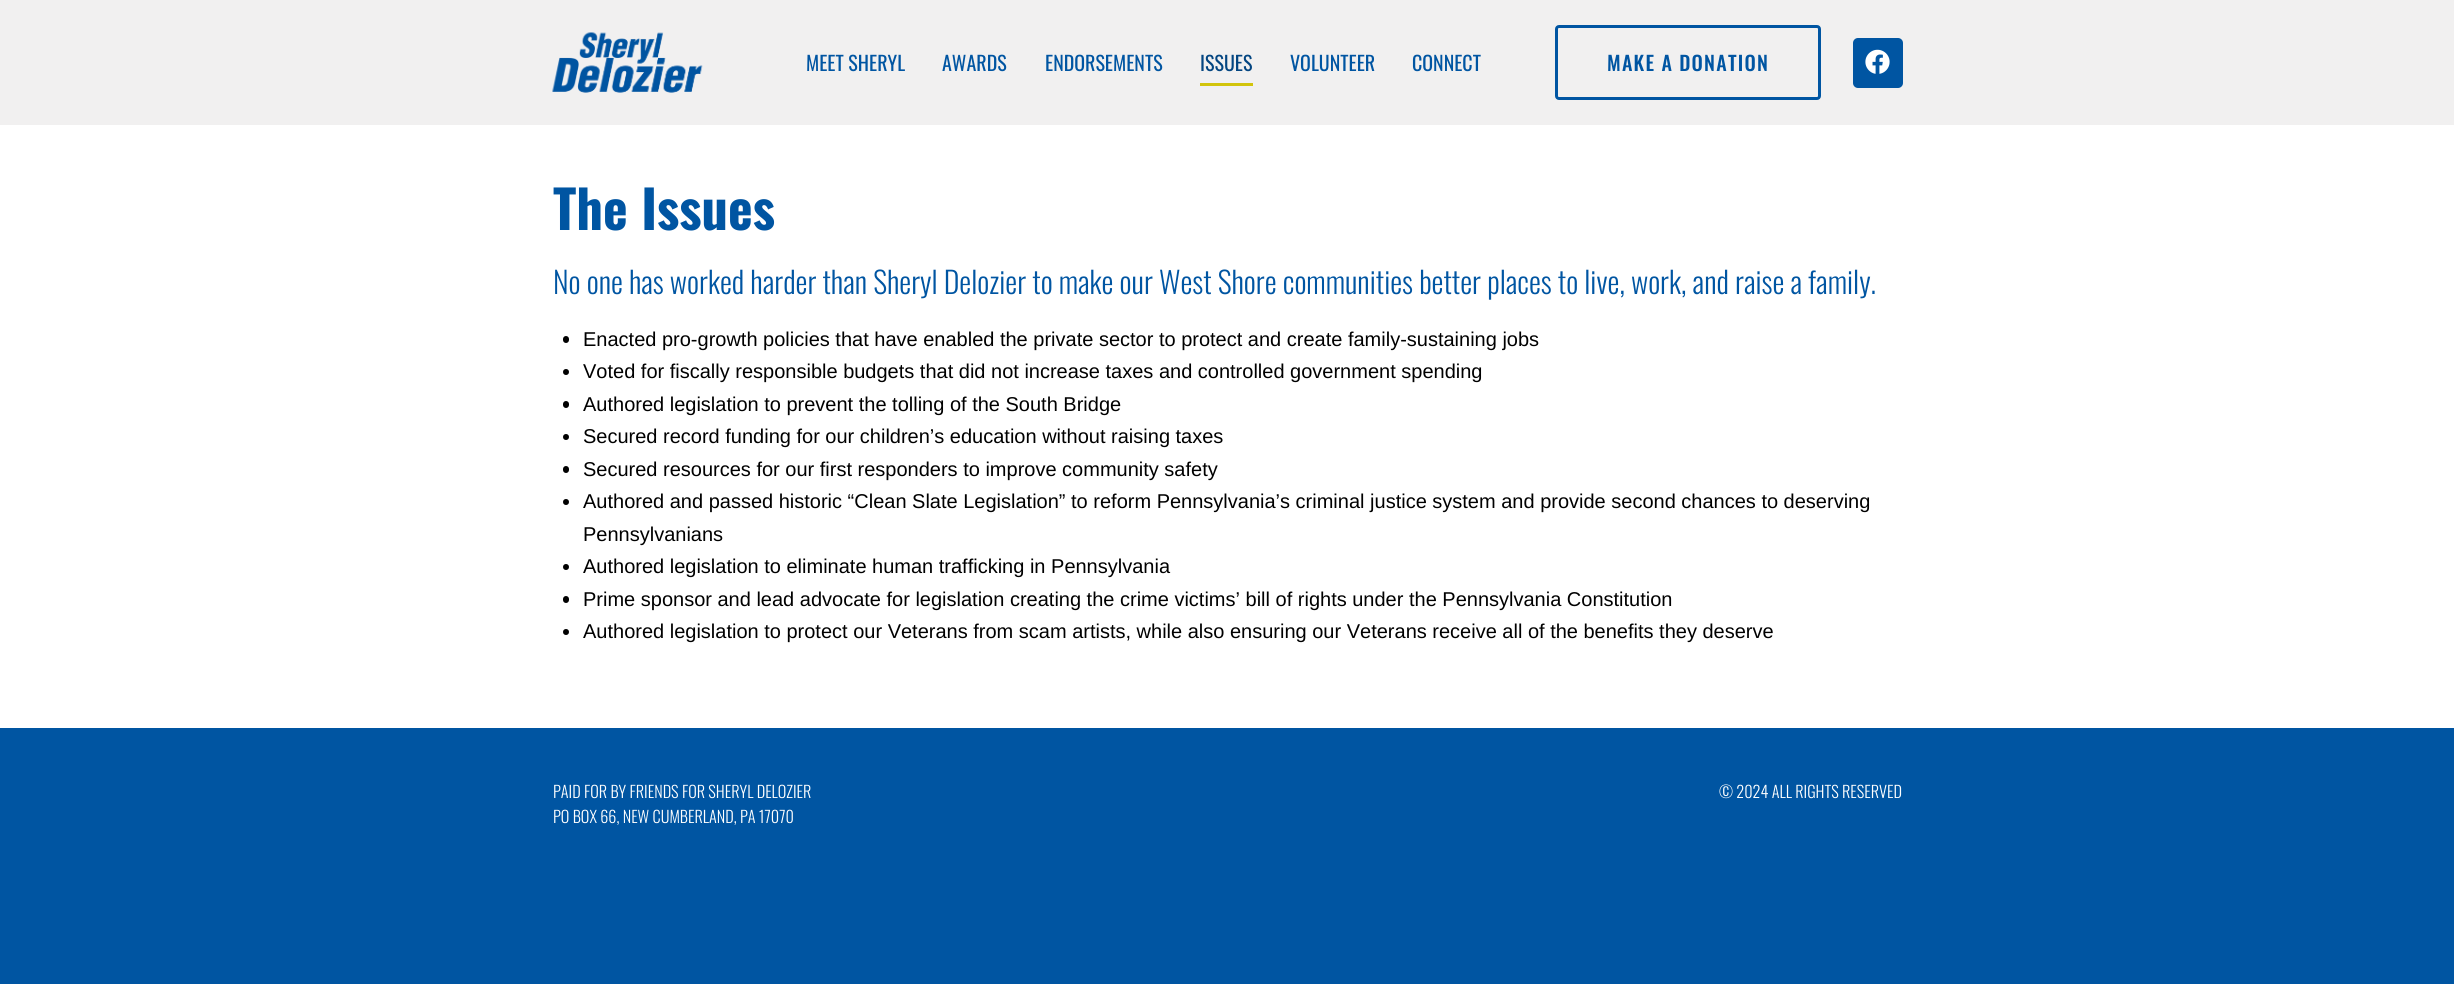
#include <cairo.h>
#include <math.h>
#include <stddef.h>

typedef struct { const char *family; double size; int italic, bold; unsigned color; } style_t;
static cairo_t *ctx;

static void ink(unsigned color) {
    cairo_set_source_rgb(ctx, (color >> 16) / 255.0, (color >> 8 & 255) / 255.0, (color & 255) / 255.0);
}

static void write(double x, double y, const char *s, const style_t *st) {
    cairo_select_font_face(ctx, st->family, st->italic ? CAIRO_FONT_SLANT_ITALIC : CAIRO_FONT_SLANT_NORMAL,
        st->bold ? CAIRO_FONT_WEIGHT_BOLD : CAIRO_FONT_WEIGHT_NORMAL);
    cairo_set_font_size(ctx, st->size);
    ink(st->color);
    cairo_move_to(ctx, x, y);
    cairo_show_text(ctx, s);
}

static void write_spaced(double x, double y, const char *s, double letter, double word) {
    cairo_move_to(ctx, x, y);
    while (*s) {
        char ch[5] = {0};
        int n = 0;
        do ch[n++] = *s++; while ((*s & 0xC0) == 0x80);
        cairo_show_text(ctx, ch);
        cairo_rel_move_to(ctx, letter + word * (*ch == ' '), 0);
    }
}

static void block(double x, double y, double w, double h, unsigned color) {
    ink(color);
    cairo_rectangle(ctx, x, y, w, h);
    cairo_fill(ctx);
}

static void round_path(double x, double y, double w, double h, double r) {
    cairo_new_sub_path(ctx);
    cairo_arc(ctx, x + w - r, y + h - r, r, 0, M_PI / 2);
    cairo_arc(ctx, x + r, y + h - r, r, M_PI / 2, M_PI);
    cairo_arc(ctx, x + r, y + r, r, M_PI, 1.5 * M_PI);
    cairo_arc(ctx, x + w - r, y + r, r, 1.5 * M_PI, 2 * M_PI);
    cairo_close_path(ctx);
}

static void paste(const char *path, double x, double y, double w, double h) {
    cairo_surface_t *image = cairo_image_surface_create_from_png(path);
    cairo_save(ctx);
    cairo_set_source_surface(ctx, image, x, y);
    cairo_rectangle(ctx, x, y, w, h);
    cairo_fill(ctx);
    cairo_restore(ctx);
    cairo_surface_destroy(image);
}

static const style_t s1 = {"Oswald", 20, 0, 0, 0x0055a2};
static const style_t s2 = {"Oswald", 20, 0, 0, 0x034581};
static const style_t s3 = {"Oswald", 52.5, 0, 1, 0x0055a2};
static const style_t s4 = {"Oswald Light", 30, 0, 0, 0x0055a2};
static const style_t s5 = {"Liberation Sans", 20, 0, 0, 0x000000};
static const style_t s6 = {"Oswald Light", 16.25, 0, 0, 0xffffff};

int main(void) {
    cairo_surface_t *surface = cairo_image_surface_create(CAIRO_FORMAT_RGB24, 2454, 984);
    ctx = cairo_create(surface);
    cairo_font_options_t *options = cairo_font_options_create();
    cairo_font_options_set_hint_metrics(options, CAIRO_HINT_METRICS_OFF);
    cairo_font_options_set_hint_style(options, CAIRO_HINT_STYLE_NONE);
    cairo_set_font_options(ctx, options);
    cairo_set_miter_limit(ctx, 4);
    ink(0xffffff);
    cairo_paint(ctx);
    block(0, 0, 2454, 125, 0xf1f0f0);
    paste("pic1.png", 552, 32, 151, 61);
    write(806, 71, "MEET SHERYL", &s1);
    write(942, 71, "AWARDS", &s1);
    write(1045, 71, "ENDORSEMENTS", &s1);
    write(1200, 71, "ISSUES", &s2);
    block(1200, 83, 53, 3, 0xd2c40c);
    write(1290, 71, "VOLUNTEER", &s1);
    write(1412, 71, "CONNECT", &s1);
    round_path(1556.5, 26.5, 263, 72, 2.5);
    cairo_set_line_width(ctx, 3);
    cairo_stroke(ctx);
    cairo_select_font_face(ctx, "Oswald Medium", CAIRO_FONT_SLANT_NORMAL, CAIRO_FONT_WEIGHT_NORMAL);
    write_spaced(1607, 71, "MAKE A DONATION", 1.25, 0);
    round_path(1853, 38, 50, 50, 5);
    cairo_fill(ctx);
    paste("pic2.png", 1865, 49, 25, 25);
    write(553, 230, "The Issues", &s3);
    write(553, 294, "No one has worked harder than Sheryl Delozier to make our West Shore communities better places to live, work, and raise a family.", &s4);
    ink(0x000000);
    round_path(563, 336, 6, 7, 3);
    cairo_fill(ctx);
    write(583, 346, "Enacted pro-growth policies that have enabled the private sector to protect and create family-sustaining jobs", &s5);
    cairo_new_path(ctx);
    cairo_arc(ctx, 566, 372, 3, 0, 2 * M_PI);
    cairo_fill(ctx);
    write(583, 378, "Voted for fiscally responsible budgets that did not increase taxes and controlled government spending", &s5);
    round_path(563, 401, 6, 7, 3);
    cairo_fill(ctx);
    write(583, 411, "Authored legislation to prevent the tolling of the South Bridge", &s5);
    cairo_new_path(ctx);
    cairo_arc(ctx, 566, 437, 3, 0, 2 * M_PI);
    cairo_fill(ctx);
    write(583, 443, "Secured record funding for our children’s education without raising taxes", &s5);
    round_path(563, 466, 6, 7, 3);
    cairo_fill(ctx);
    write(583, 476, "Secured resources for our first responders to improve community safety", &s5);
    cairo_new_path(ctx);
    cairo_arc(ctx, 566, 502, 3, 0, 2 * M_PI);
    cairo_fill(ctx);
    write(583, 508, "Authored and passed historic “Clean Slate Legislation” to reform Pennsylvania’s criminal justice system and provide second chances to deserving", &s5);
    write(583, 541, "Pennsylvanians", &s5);
    cairo_new_path(ctx);
    cairo_arc(ctx, 566, 567, 3, 0, 2 * M_PI);
    cairo_fill(ctx);
    write(583, 573, "Authored legislation to eliminate human trafficking in Pennsylvania", &s5);
    round_path(563, 596, 6, 7, 3);
    cairo_fill(ctx);
    write(583, 606, "Prime sponsor and lead advocate for legislation creating the crime victims’ bill of rights under the Pennsylvania Constitution", &s5);
    cairo_new_path(ctx);
    cairo_arc(ctx, 566, 632, 3, 0, 2 * M_PI);
    cairo_fill(ctx);
    write(583, 638, "Authored legislation to protect our Veterans from scam artists, while also ensuring our Veterans receive all of the benefits they deserve", &s5);
    block(0, 728, 2454, 256, 0x0055a2);
    write(553, 798, "PAID FOR BY FRIENDS FOR SHERYL DELOZIER", &s6);
    write(553, 823, "PO BOX 66, NEW CUMBERLAND, PA 17070", &s6);
    write(1719, 798, "© 2024 ALL RIGHTS RESERVED", &s6);
    cairo_surface_write_to_png(surface, "screenshot.png");
    cairo_font_options_destroy(options);
    cairo_destroy(ctx);
    cairo_surface_destroy(surface);
    return 0;
}
